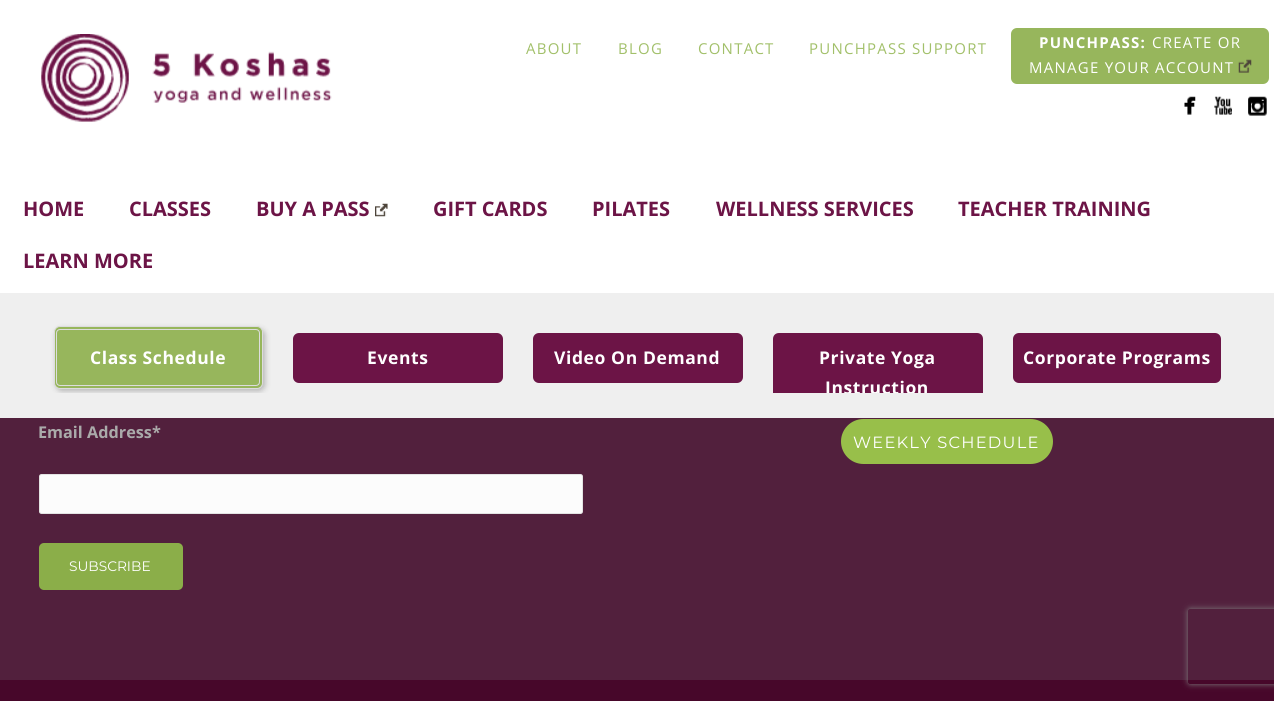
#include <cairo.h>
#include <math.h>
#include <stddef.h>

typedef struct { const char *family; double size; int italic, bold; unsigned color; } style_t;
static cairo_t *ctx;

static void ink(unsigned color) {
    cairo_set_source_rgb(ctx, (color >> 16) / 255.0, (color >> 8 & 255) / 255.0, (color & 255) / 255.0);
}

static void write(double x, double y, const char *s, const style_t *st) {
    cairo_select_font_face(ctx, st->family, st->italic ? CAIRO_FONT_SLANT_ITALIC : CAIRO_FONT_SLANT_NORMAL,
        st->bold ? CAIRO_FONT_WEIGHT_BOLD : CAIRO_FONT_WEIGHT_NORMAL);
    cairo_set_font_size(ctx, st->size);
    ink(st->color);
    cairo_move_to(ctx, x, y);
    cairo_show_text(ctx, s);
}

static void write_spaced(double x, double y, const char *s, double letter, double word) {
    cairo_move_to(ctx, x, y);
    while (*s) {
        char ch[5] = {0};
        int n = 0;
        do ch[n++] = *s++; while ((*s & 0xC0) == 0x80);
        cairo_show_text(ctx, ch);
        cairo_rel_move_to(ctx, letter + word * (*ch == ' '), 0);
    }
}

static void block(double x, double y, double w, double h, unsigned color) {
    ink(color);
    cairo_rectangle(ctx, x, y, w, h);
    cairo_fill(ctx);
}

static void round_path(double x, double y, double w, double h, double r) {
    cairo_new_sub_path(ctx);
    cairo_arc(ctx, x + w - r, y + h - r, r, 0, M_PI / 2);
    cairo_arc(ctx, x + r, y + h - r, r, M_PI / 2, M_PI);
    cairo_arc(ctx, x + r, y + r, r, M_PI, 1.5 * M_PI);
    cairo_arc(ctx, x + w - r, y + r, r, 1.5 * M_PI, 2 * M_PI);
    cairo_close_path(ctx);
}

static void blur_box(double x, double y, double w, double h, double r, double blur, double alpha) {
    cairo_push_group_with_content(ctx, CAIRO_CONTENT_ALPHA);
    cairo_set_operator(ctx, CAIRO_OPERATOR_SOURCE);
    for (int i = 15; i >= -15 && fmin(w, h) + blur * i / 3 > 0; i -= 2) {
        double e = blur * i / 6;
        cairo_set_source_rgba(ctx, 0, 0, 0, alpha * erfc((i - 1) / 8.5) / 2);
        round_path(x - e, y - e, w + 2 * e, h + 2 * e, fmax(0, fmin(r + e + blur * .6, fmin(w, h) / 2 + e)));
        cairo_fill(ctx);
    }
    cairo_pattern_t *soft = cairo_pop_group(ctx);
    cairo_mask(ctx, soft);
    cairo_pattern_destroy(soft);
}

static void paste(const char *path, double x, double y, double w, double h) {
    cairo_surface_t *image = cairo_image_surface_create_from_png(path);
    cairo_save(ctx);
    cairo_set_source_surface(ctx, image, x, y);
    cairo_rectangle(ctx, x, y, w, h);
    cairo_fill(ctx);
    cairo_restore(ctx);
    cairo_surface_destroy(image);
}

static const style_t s1 = {"Open Sans", 20, 0, 1, 0x6c1446};
static const style_t s2 = {"Open Sans", 16.25, 0, 1, 0xaaaaaa};
static const style_t s3 = {"Montserrat", 13.75, 0, 0, 0xffffff};

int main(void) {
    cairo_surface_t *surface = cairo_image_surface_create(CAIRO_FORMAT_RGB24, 1274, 701);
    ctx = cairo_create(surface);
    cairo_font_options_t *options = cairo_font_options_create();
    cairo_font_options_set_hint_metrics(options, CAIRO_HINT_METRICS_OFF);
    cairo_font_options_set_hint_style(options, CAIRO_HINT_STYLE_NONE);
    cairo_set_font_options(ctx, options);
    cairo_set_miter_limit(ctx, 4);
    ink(0x52203d);
    cairo_paint(ctx);
    block(0, 0, 1274, 293, 0xffffff);
    paste("pic1.png", 41, 34, 291, 88);
    cairo_select_font_face(ctx, "Open Sans", CAIRO_FONT_SLANT_NORMAL, CAIRO_FONT_WEIGHT_NORMAL);
    cairo_set_font_size(ctx, 15);
    ink(0xa2c06a);
    write_spaced(526, 54, "ABOUT", 1.25, 0);
    write_spaced(618, 54, "BLOG", 1.25, 0);
    write_spaced(698, 54, "CONTACT", 1.25, 0);
    write_spaced(809, 54, "PUNCHPASS SUPPORT", 1.25, 0);
    ink(0x97b65c);
    round_path(1011, 28, 258, 56, 6);
    cairo_fill(ctx);
    cairo_select_font_face(ctx, "Open Sans", CAIRO_FONT_SLANT_NORMAL, CAIRO_FONT_WEIGHT_BOLD);
    ink(0xffffff);
    write_spaced(1039, 48, "PUNCHPASS:", 1.25, 0);
    cairo_select_font_face(ctx, "Open Sans", CAIRO_FONT_SLANT_NORMAL, CAIRO_FONT_WEIGHT_NORMAL);
    write_spaced(1152, 48, "CREATE OR", 1.25, 0);
    write_spaced(1029, 73, "MANAGE YOUR ACCOUNT", 1.25, 0);
    paste("pic2.png", 1238, 59, 14, 14);
    paste("pic3.png", 1184, 96, 12, 19);
    paste("pic4.png", 1214, 96, 18, 19);
    paste("pic5.png", 1248, 96, 19, 20);
    write(23, 216, "HOME", &s1);
    write(129, 216, "CLASSES", &s1);
    write(256, 216, "BUY A PASS", &s1);
    paste("pic6.png", 375, 203, 13, 14);
    write(433, 216, "GIFT CARDS", &s1);
    write(592, 216, "PILATES", &s1);
    write(716, 216, "WELLNESS SERVICES", &s1);
    write(958, 216, "TEACHER TRAINING", &s1);
    write(23, 268, "LEARN MORE", &s1);
    block(0, 293, 1274, 100, 0xefefef);
    ink(0x000000);
    blur_box(56, 329, 209, 62, 6, 3, 0.25);
    ink(0x97b65c);
    round_path(54.5, 326.5, 208, 62, 5.5);
    cairo_fill_preserve(ctx);
    ink(0xdddddd);
    cairo_set_line_width(ctx, 1);
    cairo_stroke(ctx);
    round_path(56.5, 329.5, 203, 56, 3.5);
    cairo_stroke(ctx);
    cairo_set_font_size(ctx, 17.5);
    ink(0xffffff);
    write_spaced(90, 364, "Class Schedule", 0.6, 0);
    ink(0x6c1446);
    round_path(293, 333, 210, 50, 6);
    cairo_fill(ctx);
    ink(0xffffff);
    write_spaced(367, 364, "Events", 0.6, 0);
    ink(0x6c1446);
    round_path(533, 333, 210, 50, 6);
    cairo_fill(ctx);
    ink(0xffffff);
    write_spaced(554, 364, "Video On Demand", 0.6, 0);
    ink(0x6c1446);
    cairo_new_path(ctx);
    cairo_move_to(ctx, 779, 333);
    cairo_line_to(ctx, 977, 333);
    cairo_curve_to(ctx, 980.5, 333, 983, 335.5, 983, 339);
    cairo_line_to(ctx, 983, 393);
    cairo_line_to(ctx, 773, 393);
    cairo_line_to(ctx, 773, 339);
    cairo_curve_to(ctx, 773, 335.5, 775.5, 333, 779, 333);
    cairo_close_path(ctx);
    cairo_fill(ctx);
    ink(0xffffff);
    write_spaced(819, 364, "Private Yoga", 0.6, 0);
    write_spaced(825, 394, "Instruction", 0.6, 0);
    ink(0x6c1446);
    round_path(1013, 333, 208, 50, 6);
    cairo_fill(ctx);
    ink(0xffffff);
    write_spaced(1023, 364, "Corporate Programs", 0.6, 0);
    block(0, 393, 1274, 25, 0xefefef);
    write(38, 438, "Email Address*", &s2);
    ink(0xfcfcfc);
    round_path(39, 474, 544, 40, 2.5);
    cairo_fill(ctx);
    round_path(39.5, 474.5, 543, 39, 2);
    cairo_set_source_rgba(ctx, 0, 0, 0, 0.1);
    cairo_stroke(ctx);
    ink(0x8bae49);
    round_path(39, 543, 144, 47, 5);
    cairo_fill(ctx);
    write(69, 571, "SUBSCRIBE", &s3);
    ink(0x98bf4a);
    round_path(841, 419, 212, 45, 22.5);
    cairo_fill(ctx);
    cairo_set_font_size(ctx, 16.25);
    ink(0xffffff);
    write_spaced(853, 448, "WEEKLY SCHEDULE", 1.25, 0);
    block(0, 680, 1274, 21, 0x47072a);
    cairo_save(ctx);
    cairo_set_fill_rule(ctx, CAIRO_FILL_RULE_EVEN_ODD);
    cairo_new_path(ctx);
    cairo_move_to(ctx, 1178, 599);
    cairo_line_to(ctx, 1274, 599);
    cairo_line_to(ctx, 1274, 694);
    cairo_line_to(ctx, 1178, 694);
    cairo_close_path(ctx);
    cairo_move_to(ctx, 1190.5, 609);
    cairo_line_to(ctx, 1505.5, 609);
    cairo_curve_to(ctx, 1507, 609, 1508, 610, 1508, 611.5);
    cairo_line_to(ctx, 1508, 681.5);
    cairo_curve_to(ctx, 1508, 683, 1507, 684, 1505.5, 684);
    cairo_line_to(ctx, 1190.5, 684);
    cairo_curve_to(ctx, 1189, 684, 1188, 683, 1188, 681.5);
    cairo_line_to(ctx, 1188, 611.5);
    cairo_curve_to(ctx, 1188, 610, 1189, 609, 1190.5, 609);
    cairo_close_path(ctx);
    cairo_clip(ctx);
    ink(0x808080);
    blur_box(1188, 609, 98, 75, 2.5, 3, 1);
    cairo_restore(ctx);
    cairo_surface_write_to_png(surface, "screenshot.png");
    cairo_font_options_destroy(options);
    cairo_destroy(ctx);
    cairo_surface_destroy(surface);
    return 0;
}
